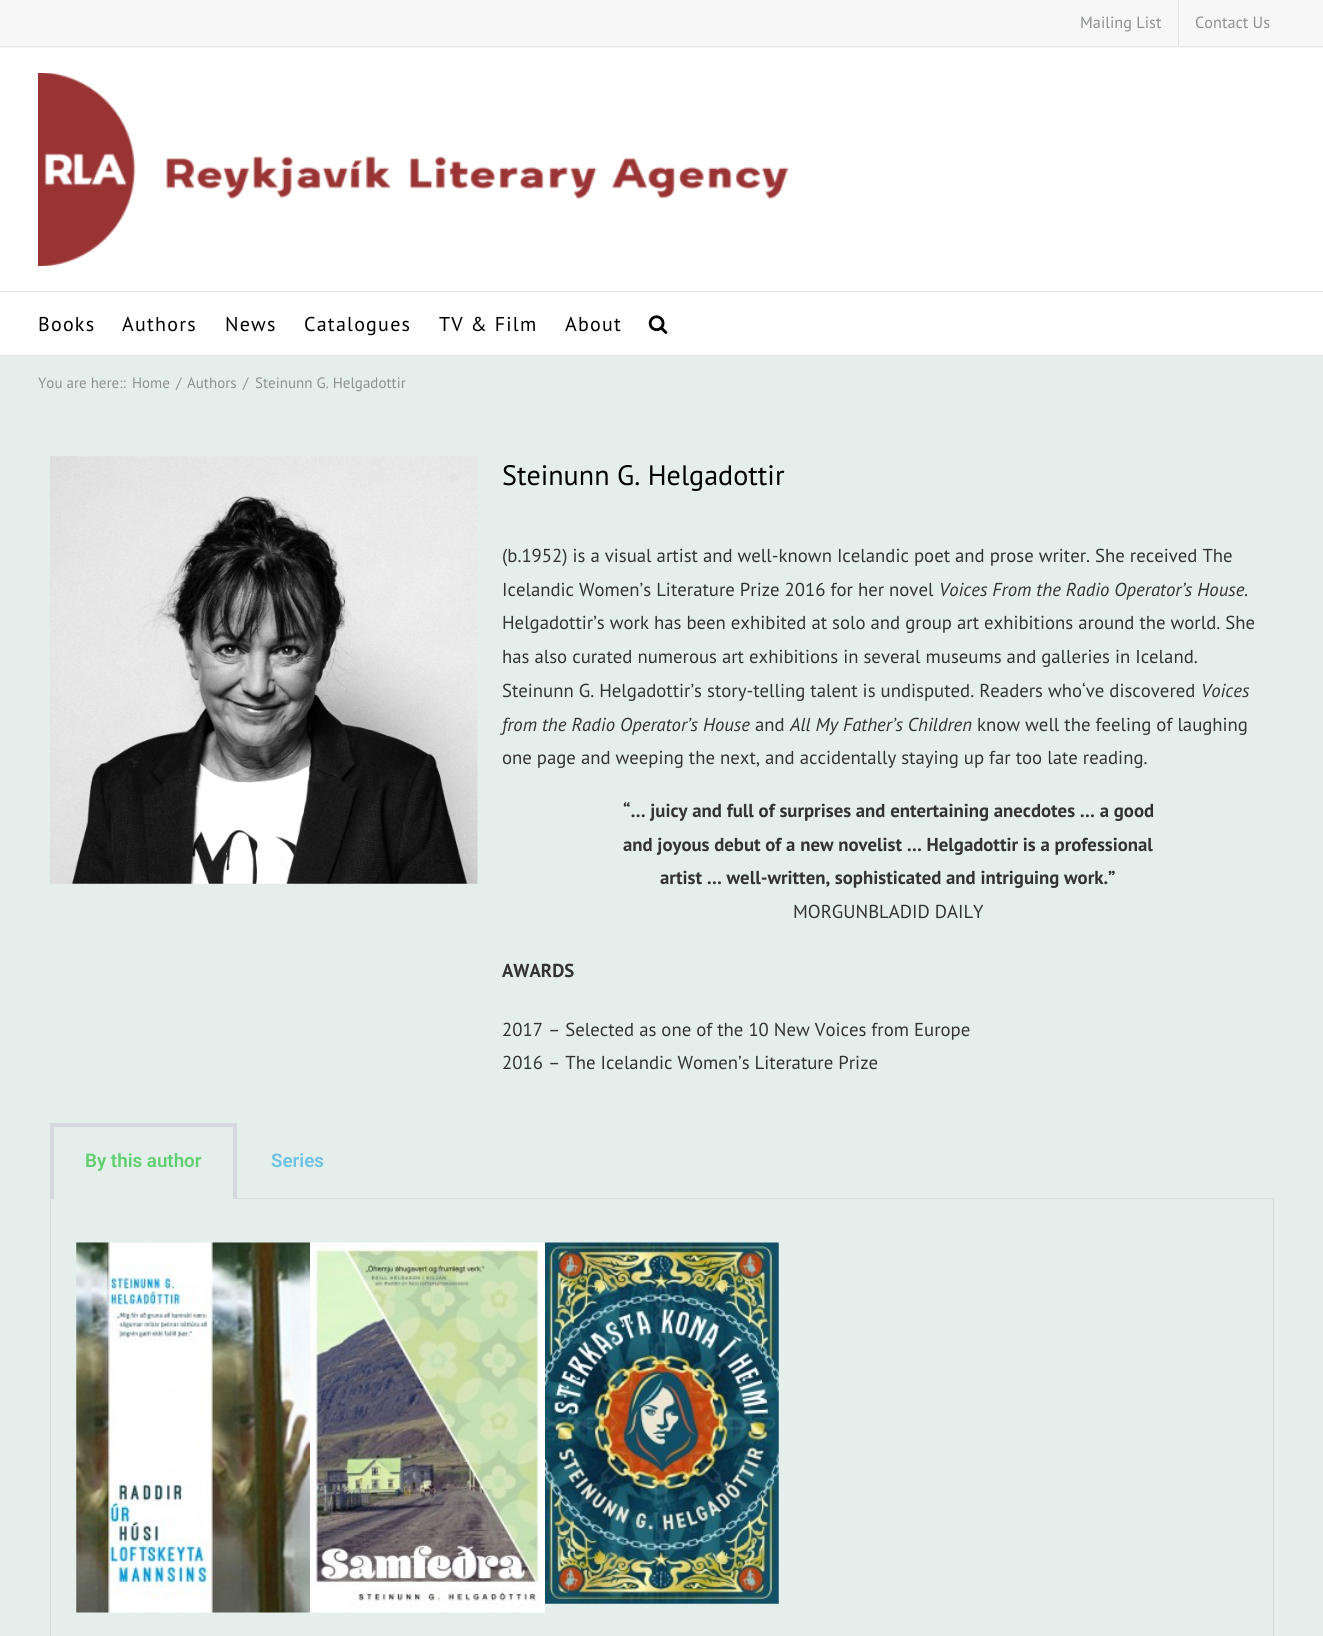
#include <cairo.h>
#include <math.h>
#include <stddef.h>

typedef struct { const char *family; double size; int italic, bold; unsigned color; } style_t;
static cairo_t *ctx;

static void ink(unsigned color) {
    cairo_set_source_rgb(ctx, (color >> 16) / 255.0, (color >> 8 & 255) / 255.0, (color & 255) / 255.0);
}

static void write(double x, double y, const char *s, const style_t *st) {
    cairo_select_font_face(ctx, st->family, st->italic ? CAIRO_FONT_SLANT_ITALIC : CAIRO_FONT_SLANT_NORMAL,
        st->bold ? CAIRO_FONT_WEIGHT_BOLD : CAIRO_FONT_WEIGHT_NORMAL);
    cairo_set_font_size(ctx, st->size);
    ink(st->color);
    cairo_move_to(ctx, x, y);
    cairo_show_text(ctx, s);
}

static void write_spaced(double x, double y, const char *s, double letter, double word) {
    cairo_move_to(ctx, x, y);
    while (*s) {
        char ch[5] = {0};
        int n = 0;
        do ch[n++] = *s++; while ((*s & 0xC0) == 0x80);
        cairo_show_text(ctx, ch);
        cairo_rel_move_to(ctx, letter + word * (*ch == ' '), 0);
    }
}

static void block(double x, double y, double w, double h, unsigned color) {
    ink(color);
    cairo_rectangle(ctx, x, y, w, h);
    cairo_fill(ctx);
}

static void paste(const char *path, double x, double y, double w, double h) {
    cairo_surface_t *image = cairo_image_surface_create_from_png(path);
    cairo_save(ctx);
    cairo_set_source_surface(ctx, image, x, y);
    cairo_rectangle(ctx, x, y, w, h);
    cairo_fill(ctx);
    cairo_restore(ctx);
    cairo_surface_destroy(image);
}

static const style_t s1 = {"PT Sans", 16.25, 0, 0, 0x8d9091};
static const style_t s2 = {"PT Sans", 15, 0, 0, 0x8d9091};
static const style_t s3 = {"PT Sans", 28.1, 0, 0, 0x000000};
static const style_t s4 = {"PT Sans", 18.75, 0, 0, 0x333333};
static const style_t s5 = {"PT Sans", 18.75, 1, 0, 0x333333};
static const style_t s6 = {"PT Sans", 18.75, 0, 1, 0x333333};
static const style_t s7 = {"Roboto SemiBold", 18.75, 0, 0, 0x61ce70};
static const style_t s8 = {"Roboto SemiBold", 18.75, 0, 0, 0x6ec1e4};

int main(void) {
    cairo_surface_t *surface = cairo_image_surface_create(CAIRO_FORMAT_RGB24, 1323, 1636);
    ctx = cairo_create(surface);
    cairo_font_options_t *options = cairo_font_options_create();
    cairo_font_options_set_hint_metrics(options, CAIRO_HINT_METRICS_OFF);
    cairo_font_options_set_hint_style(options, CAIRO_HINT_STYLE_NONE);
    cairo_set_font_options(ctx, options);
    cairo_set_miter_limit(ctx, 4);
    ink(0xe4efec);
    cairo_paint(ctx);
    block(0, 0, 1323, 48, 0xf7f7f7);
    block(0, 46, 1323, 1, 0xe5e5e5);
    write(1080, 28, "Mailing List", &s1);
    block(1178, 0, 1, 46, 0xe5e2e2);
    write(1195, 28, "Contact Us", &s1);
    block(0, 48, 1323, 307, 0xffffff);
    block(0, 291, 1323, 1, 0xe5e5e5);
    paste("pic1.png", 38, 73, 750, 193);
    block(0, 355, 1323, 1, 0xe5e5e5);
    cairo_set_font_size(ctx, 20);
    ink(0x000000);
    write_spaced(38, 331, "Books", 1.25, 0);
    write_spaced(122, 331, "Authors", 1.25, 0);
    write_spaced(225, 331, "News", 1.25, 0);
    write_spaced(304, 331, "Catalogues", 1.25, 0);
    write_spaced(439, 331, "TV & Film", 1.25, 0);
    write_spaced(565, 331, "About", 1.25, 0);
    paste("pic2.png", 648, 315, 20, 19);
    write(38, 388, "You are here::", &s2);
    write(132, 388, "Home", &s2);
    write(176, 388, "/", &s2);
    write(187, 388, "Authors", &s2);
    write(243, 388, "/", &s2);
    write(255, 388, "Steinunn G. Helgadottir", &s2);
    paste("pic3.png", 50, 456, 428, 428);
    write(502, 485, "Steinunn G. Helgadottir", &s3);
    write(502, 562, "(b.1952) is a visual artist and well-known Icelandic poet and prose writer. She received The", &s4);
    write(502, 596, "Icelandic Women’s Literature Prize 2016 for her novel", &s4);
    write(939, 596, "Voices From the Radio Operator’s House", &s5);
    write(1244, 596, ".", &s4);
    write(502, 629, "Helgadottir’s work has been exhibited at solo and group art exhibitions around the world. She", &s4);
    write(502, 663, "has also curated numerous art exhibitions in several museums and galleries in Iceland.", &s4);
    write(502, 697, "Steinunn G. Helgadottir’s story-telling talent is undisputed. Readers who‘ve discovered", &s4);
    write(1201, 697, "Voices", &s5);
    write(502, 731, "from the Radio Operator’s House", &s5);
    write(755, 731, "and", &s4);
    write(790, 731, "All My Father’s Children", &s5);
    write(977, 731, "know well the feeling of laughing", &s4);
    write(502, 764, "one page and weeping the next, and accidentally staying up far too late reading.", &s4);
    write(623, 817, "“… juicy and full of surprises and entertaining anecdotes … a good", &s6);
    write(623, 851, "and joyous debut of a new novelist … Helgadottir is a professional", &s6);
    write(660, 884, "artist … well-written, sophisticated and intriguing work.”", &s6);
    write(793, 918, "MORGUNBLADID DAILY", &s4);
    write(502, 977, "AWARDS", &s6);
    write(502, 1036, "2017 – Selected as one of the 10 New Voices from Europe", &s4);
    write(502, 1069, "2016 – The Icelandic Women’s Literature Prize", &s4);
    block(50, 1123, 186, 4, 0xd5d8dc);
    block(233, 1123, 4, 76, 0xd5d8dc);
    block(50, 1123, 4, 76, 0xd5d8dc);
    write(85, 1167, "By this author", &s7);
    block(233, 1198, 1041, 1, 0xd5d8dc);
    write(271, 1167, "Series", &s8);
    block(1273, 1199, 1, 437, 0xd5d8dc);
    block(50, 1199, 1, 437, 0xd5d8dc);
    paste("pic4.png", 76, 1242, 234, 371);
    paste("pic5.png", 310, 1242, 235, 371);
    paste("pic6.png", 545, 1242, 234, 362);
    cairo_surface_write_to_png(surface, "screenshot.png");
    cairo_font_options_destroy(options);
    cairo_destroy(ctx);
    cairo_surface_destroy(surface);
    return 0;
}
